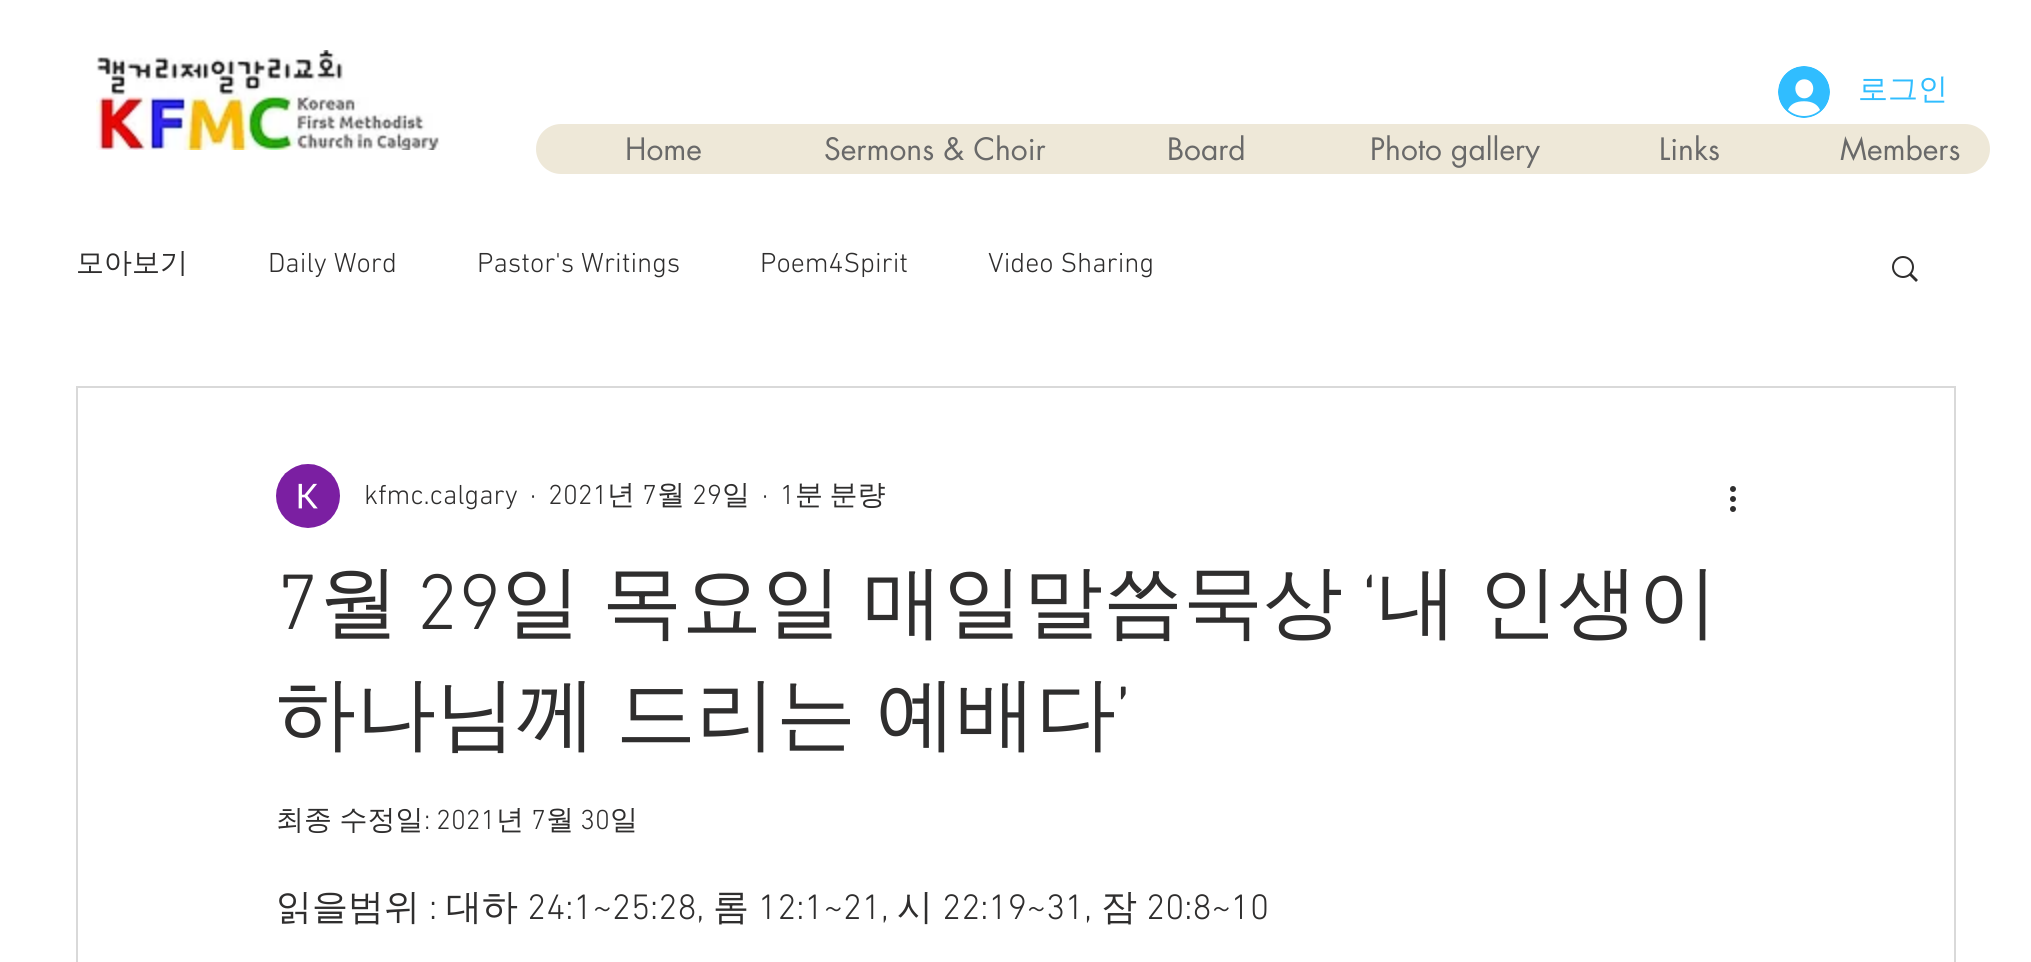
#include <cairo.h>
#include <math.h>
#include <stddef.h>

typedef struct { const char *family; double size; int italic, bold; unsigned color; } style_t;
static cairo_t *ctx;

static void ink(unsigned color) {
    cairo_set_source_rgb(ctx, (color >> 16) / 255.0, (color >> 8 & 255) / 255.0, (color & 255) / 255.0);
}

static void write(double x, double y, const char *s, const style_t *st) {
    cairo_select_font_face(ctx, st->family, st->italic ? CAIRO_FONT_SLANT_ITALIC : CAIRO_FONT_SLANT_NORMAL,
        st->bold ? CAIRO_FONT_WEIGHT_BOLD : CAIRO_FONT_WEIGHT_NORMAL);
    cairo_set_font_size(ctx, st->size);
    ink(st->color);
    cairo_move_to(ctx, x, y);
    cairo_show_text(ctx, s);
}

static void write_spaced(double x, double y, const char *s, double letter, double word) {
    cairo_move_to(ctx, x, y);
    while (*s) {
        char ch[5] = {0};
        int n = 0;
        do ch[n++] = *s++; while ((*s & 0xC0) == 0x80);
        cairo_show_text(ctx, ch);
        cairo_rel_move_to(ctx, letter + word * (*ch == ' '), 0);
    }
}

static void round_path(double x, double y, double w, double h, double r) {
    cairo_new_sub_path(ctx);
    cairo_arc(ctx, x + w - r, y + h - r, r, 0, M_PI / 2);
    cairo_arc(ctx, x + r, y + h - r, r, M_PI / 2, M_PI);
    cairo_arc(ctx, x + r, y + r, r, M_PI, 1.5 * M_PI);
    cairo_arc(ctx, x + w - r, y + r, r, 1.5 * M_PI, 2 * M_PI);
    cairo_close_path(ctx);
}

static void paste(const char *path, double x, double y, double w, double h) {
    cairo_surface_t *image = cairo_image_surface_create_from_png(path);
    cairo_save(ctx);
    cairo_set_source_surface(ctx, image, x, y);
    cairo_rectangle(ctx, x, y, w, h);
    cairo_fill(ctx);
    cairo_restore(ctx);
    cairo_surface_destroy(image);
}

static const style_t s1 = {"WenQuanYi Zen Hei Medium", 30, 0, 0, 0x30bdff};
static const style_t s2 = {"futura", 30, 0, 0, 0x696969};
static const style_t s3 = {"WenQuanYi Zen Hei Medium", 28, 0, 0, 0x2f2e2e};
static const style_t s4 = {"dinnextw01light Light", 28, 0, 0, 0x2f2e2e};
static const style_t s5 = {"dinnextw01light Light", 80, 0, 0, 0x2f2e2e};
static const style_t s6 = {"WenQuanYi Zen Hei Medium", 80, 0, 0, 0x2f2e2e};
static const style_t s7 = {"WenQuanYi Zen Hei Medium", 36, 0, 0, 0x2f2e2e};
static const style_t s8 = {"dinnextw01light Light", 36, 0, 0, 0x2f2e2e};

int main(void) {
    cairo_surface_t *surface = cairo_image_surface_create(CAIRO_FORMAT_RGB24, 2031, 962);
    ctx = cairo_create(surface);
    cairo_font_options_t *options = cairo_font_options_create();
    cairo_font_options_set_hint_metrics(options, CAIRO_HINT_METRICS_OFF);
    cairo_font_options_set_hint_style(options, CAIRO_HINT_STYLE_NONE);
    cairo_set_font_options(ctx, options);
    cairo_set_miter_limit(ctx, 4);
    ink(0xffffff);
    cairo_paint(ctx);
    paste("pic1.png", 96, 50, 344, 100);
    paste("pic2.png", 1778, 66, 52, 52);
    write(1858, 99, "로그인", &s1);
    ink(0xeee8d8);
    round_path(536, 124, 1454, 50, 25);
    cairo_fill(ctx);
    write(625, 160, "Home", &s2);
    write(824, 160, "Sermons & Choir", &s2);
    write(1167, 160, "Board", &s2);
    write(1370, 160, "Photo gallery", &s2);
    write(1659, 160, "Links", &s2);
    write(1840, 160, "Members", &s2);
    write(76, 272, "모아보기", &s3);
    write(268, 272, "Daily Word", &s4);
    write(477, 272, "Pastor's Writings", &s4);
    write(760, 272, "Poem4Spirit", &s4);
    write(988, 272, "Video Sharing", &s4);
    paste("pic3.png", 1892, 256, 26, 26);
    cairo_rectangle(ctx, 77, 387, 1878, 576);
    ink(0xd9d9d9);
    cairo_stroke(ctx);
    paste("pic4.png", 276, 464, 64, 64);
    write(364, 504, "kfmc.calgary", &s4);
    write(530, 504, "·", &s4);
    write(548, 504, "2021", &s4);
    write(607, 504, "년", &s3);
    write(642, 504, "7", &s4);
    write(657, 504, "월", &s3);
    write(692, 504, "29", &s4);
    write(722, 504, "일", &s3);
    write(762, 504, "·", &s4);
    write(780, 504, "1", &s4);
    cairo_select_font_face(ctx, "WenQuanYi Zen Hei Medium", CAIRO_FONT_SLANT_NORMAL, CAIRO_FONT_WEIGHT_NORMAL);
    write_spaced(795, 504, "분 분량", 0, -2);
    paste("pic5.png", 1730, 486, 6, 26);
    write(276, 629, "7", &s5);
    write(319, 629, "월", &s6);
    write(416, 629, "29", &s5);
    cairo_select_font_face(ctx, "WenQuanYi Zen Hei Medium", CAIRO_FONT_SLANT_NORMAL, CAIRO_FONT_WEIGHT_NORMAL);
    write_spaced(501, 629, "일 목요일 매일말씀묵상", 0, -3);
    write(1361, 629, "‘", &s5);
    cairo_select_font_face(ctx, "WenQuanYi Zen Hei Medium", CAIRO_FONT_SLANT_NORMAL, CAIRO_FONT_WEIGHT_NORMAL);
    write_spaced(1377, 629, "내 인생이", 0, -3);
    write_spaced(276, 741, "하나님께 드리는 예배다", 0, -4);
    write(1115, 741, "’", &s5);
    cairo_select_font_face(ctx, "WenQuanYi Zen Hei Medium", CAIRO_FONT_SLANT_NORMAL, CAIRO_FONT_WEIGHT_NORMAL);
    cairo_set_font_size(ctx, 28);
    write_spaced(276, 829, "최종 수정일", 0, -1);
    write(424, 829, ":", &s4);
    write(436, 829, "2021", &s4);
    write(496, 829, "년", &s3);
    write(531, 829, "7", &s4);
    write(546, 829, "월", &s3);
    write(580, 829, "30", &s4);
    write(610, 829, "일", &s3);
    write(276, 919, "읽을범위", &s7);
    write(429, 919, ":", &s8);
    write(446, 919, "대하", &s7);
    write(527, 919, "24:1~25:28,", &s8);
    write(713, 919, "롬", &s7);
    write(758, 919, "12:1~21,", &s8);
    write(897, 919, "시", &s7);
    write(942, 919, "22:19~31,", &s8);
    write(1101, 919, "잠", &s7);
    write(1146, 919, "20:8~10", &s8);
    cairo_surface_write_to_png(surface, "screenshot.png");
    cairo_font_options_destroy(options);
    cairo_destroy(ctx);
    cairo_surface_destroy(surface);
    return 0;
}
